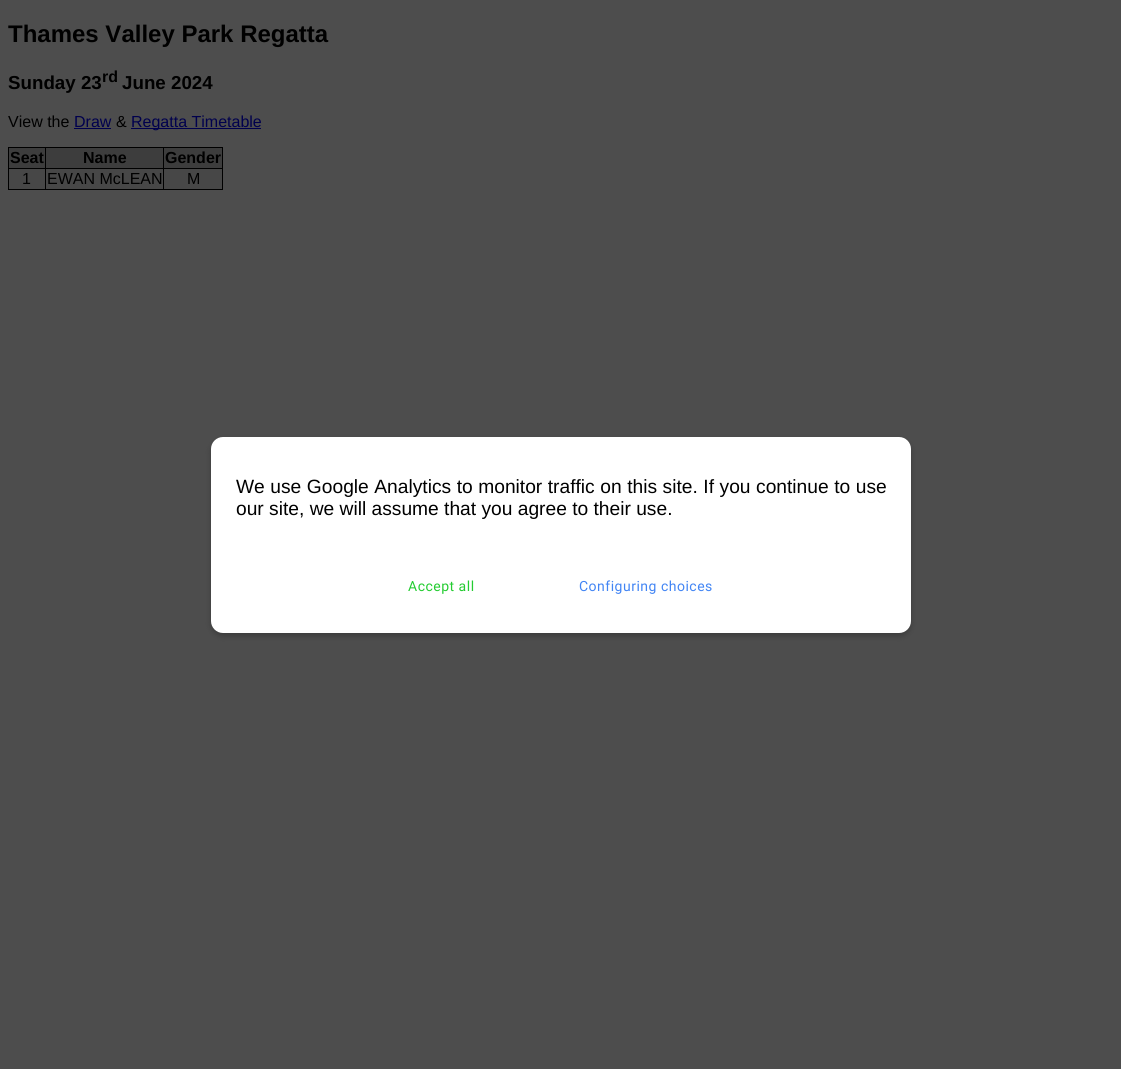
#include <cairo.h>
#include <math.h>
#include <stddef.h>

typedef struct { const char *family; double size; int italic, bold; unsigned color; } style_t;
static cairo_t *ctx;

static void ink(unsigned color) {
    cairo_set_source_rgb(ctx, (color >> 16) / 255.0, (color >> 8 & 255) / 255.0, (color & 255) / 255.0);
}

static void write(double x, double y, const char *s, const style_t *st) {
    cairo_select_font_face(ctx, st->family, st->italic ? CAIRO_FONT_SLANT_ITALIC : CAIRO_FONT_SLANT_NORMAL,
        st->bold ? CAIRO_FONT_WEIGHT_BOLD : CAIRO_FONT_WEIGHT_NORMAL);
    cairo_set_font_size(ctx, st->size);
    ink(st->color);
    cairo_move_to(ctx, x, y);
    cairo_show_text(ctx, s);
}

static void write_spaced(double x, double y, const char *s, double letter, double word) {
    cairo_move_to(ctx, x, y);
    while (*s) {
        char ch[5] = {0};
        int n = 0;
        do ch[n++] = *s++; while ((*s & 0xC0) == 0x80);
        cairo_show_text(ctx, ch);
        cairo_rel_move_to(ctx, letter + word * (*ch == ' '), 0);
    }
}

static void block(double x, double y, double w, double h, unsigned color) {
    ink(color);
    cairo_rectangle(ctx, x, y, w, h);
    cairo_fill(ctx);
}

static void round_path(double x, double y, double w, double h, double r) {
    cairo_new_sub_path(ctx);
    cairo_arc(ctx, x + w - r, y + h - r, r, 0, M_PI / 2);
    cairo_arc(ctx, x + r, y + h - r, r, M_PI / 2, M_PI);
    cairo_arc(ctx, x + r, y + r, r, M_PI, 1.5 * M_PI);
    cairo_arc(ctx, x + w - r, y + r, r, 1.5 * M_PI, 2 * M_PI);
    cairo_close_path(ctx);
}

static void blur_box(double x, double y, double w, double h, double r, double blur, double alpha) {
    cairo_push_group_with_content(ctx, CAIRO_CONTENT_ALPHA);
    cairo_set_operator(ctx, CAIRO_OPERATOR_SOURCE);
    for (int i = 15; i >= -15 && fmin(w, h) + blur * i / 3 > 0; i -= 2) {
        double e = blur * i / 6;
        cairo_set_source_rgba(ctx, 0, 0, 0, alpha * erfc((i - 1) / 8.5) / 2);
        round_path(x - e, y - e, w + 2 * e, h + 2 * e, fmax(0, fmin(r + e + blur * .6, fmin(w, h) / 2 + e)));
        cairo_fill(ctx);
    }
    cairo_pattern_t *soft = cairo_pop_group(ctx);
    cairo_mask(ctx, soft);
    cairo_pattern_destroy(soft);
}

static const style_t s1 = {"Liberation Sans", 24, 0, 1, 0x000000};
static const style_t s2 = {"Liberation Sans", 18.75, 0, 1, 0x000000};
static const style_t s3 = {"Liberation Sans", 16, 0, 1, 0x000000};
static const style_t s4 = {"Liberation Sans", 16, 0, 0, 0x000000};
static const style_t s5 = {"Liberation Sans", 16, 0, 0, 0x00004d};
static const style_t s6 = {"Liberation Sans", 19.2, 0, 0, 0x000000};

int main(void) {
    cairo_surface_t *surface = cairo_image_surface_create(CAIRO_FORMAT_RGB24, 1121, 1069);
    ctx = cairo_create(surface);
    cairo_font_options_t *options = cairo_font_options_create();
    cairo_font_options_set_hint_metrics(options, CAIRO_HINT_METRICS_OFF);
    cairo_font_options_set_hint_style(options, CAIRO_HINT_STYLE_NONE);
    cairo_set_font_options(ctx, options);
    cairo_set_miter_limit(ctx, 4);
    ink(0x4d4d4d);
    cairo_paint(ctx);
    write(8, 42, "Thames Valley Park Regatta", &s1);
    write(8, 89, "Sunday 23", &s2);
    write(102, 82, "rd", &s3);
    write(122, 89, "June 2024", &s2);
    write(8, 127, "View the", &s4);
    write(74, 127, "Draw", &s5);
    block(74, 128, 37, 1, 0x00004d);
    write(116, 127, "&", &s4);
    block(131, 128, 130, 1, 0x00004d);
    write(131, 127, "Regatta Timetable", &s5);
    block(9, 148, 36, 20, 0x3d3d3d);
    block(163, 147, 60, 1, 0x000000);
    block(163, 168, 60, 1, 0x000000);
    block(9, 169, 213, 20, 0x474747);
    block(222, 168, 1, 22, 0x000000);
    block(163, 189, 60, 1, 0x000000);
    block(163, 168, 1, 22, 0x000000);
    block(45, 168, 119, 1, 0x000000);
    block(163, 147, 1, 22, 0x000000);
    block(45, 147, 119, 1, 0x000000);
    block(45, 189, 119, 1, 0x000000);
    block(45, 168, 1, 22, 0x000000);
    block(8, 168, 38, 1, 0x000000);
    block(45, 147, 1, 22, 0x000000);
    block(8, 147, 38, 1, 0x000000);
    block(8, 189, 38, 1, 0x000000);
    block(8, 168, 1, 22, 0x000000);
    block(8, 147, 1, 22, 0x000000);
    write(10, 163, "Seat", &s3);
    block(46, 148, 117, 20, 0x3d3d3d);
    write(83, 163, "Name", &s3);
    block(164, 148, 58, 20, 0x3d3d3d);
    block(222, 147, 1, 22, 0x000000);
    write(165, 163, "Gender", &s3);
    write(22, 184, "1", &s4);
    write(47, 184, "EWAN McLEAN", &s4);
    write(187, 184, "M", &s4);
    ink(0x000000);
    blur_box(211, 440, 700, 196, 12, 3, 0.23);
    ink(0xffffff);
    round_path(211, 437, 700, 196, 12);
    cairo_fill(ctx);
    cairo_set_font_size(ctx, 19.2);
    ink(0x000000);
    write_spaced(236, 493, "We use Google Analytics to monitor traffic on this site. If you continue to use", 0, 0.2);
    write(236, 515, "our site, we will assume that you agree to their use.", &s6);
    cairo_select_font_face(ctx, "Roboto", CAIRO_FONT_SLANT_NORMAL, CAIRO_FONT_WEIGHT_NORMAL);
    cairo_set_font_size(ctx, 14);
    ink(0x24cc31);
    write_spaced(408, 591, "Accept all", 0.5, 0);
    ink(0x4285f4);
    write_spaced(579, 591, "Configuring choices", 0.5, 0);
    cairo_surface_write_to_png(surface, "screenshot.png");
    cairo_font_options_destroy(options);
    cairo_destroy(ctx);
    cairo_surface_destroy(surface);
    return 0;
}
